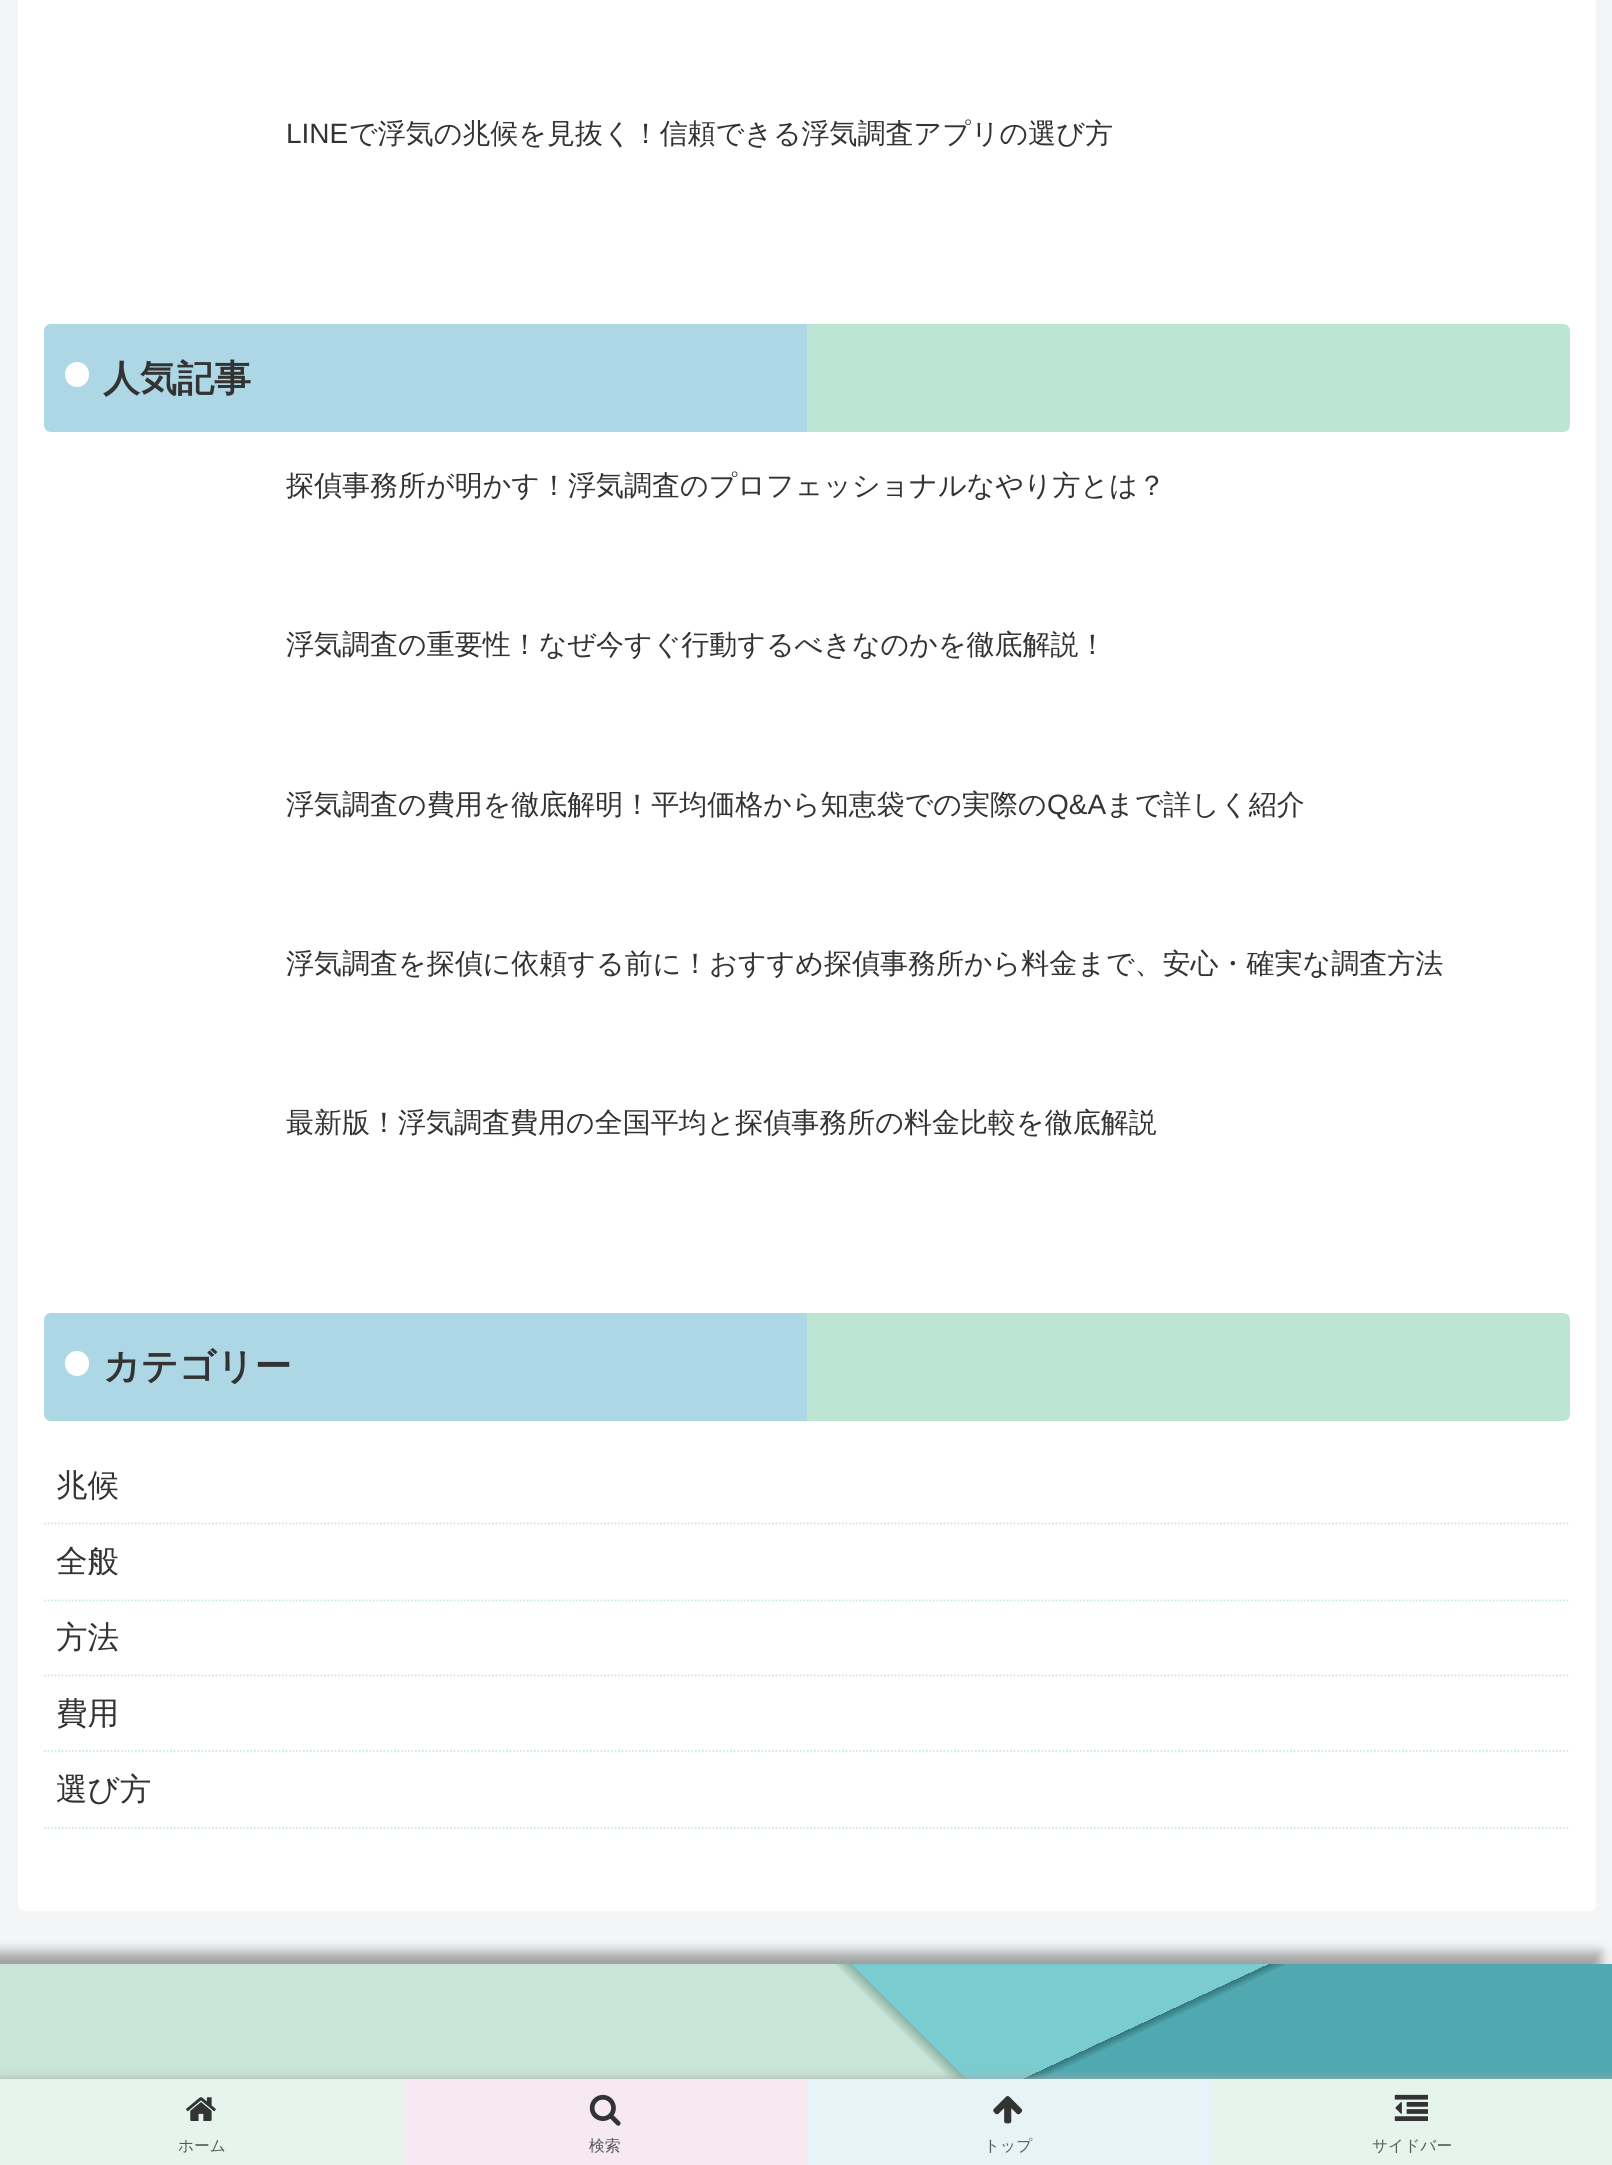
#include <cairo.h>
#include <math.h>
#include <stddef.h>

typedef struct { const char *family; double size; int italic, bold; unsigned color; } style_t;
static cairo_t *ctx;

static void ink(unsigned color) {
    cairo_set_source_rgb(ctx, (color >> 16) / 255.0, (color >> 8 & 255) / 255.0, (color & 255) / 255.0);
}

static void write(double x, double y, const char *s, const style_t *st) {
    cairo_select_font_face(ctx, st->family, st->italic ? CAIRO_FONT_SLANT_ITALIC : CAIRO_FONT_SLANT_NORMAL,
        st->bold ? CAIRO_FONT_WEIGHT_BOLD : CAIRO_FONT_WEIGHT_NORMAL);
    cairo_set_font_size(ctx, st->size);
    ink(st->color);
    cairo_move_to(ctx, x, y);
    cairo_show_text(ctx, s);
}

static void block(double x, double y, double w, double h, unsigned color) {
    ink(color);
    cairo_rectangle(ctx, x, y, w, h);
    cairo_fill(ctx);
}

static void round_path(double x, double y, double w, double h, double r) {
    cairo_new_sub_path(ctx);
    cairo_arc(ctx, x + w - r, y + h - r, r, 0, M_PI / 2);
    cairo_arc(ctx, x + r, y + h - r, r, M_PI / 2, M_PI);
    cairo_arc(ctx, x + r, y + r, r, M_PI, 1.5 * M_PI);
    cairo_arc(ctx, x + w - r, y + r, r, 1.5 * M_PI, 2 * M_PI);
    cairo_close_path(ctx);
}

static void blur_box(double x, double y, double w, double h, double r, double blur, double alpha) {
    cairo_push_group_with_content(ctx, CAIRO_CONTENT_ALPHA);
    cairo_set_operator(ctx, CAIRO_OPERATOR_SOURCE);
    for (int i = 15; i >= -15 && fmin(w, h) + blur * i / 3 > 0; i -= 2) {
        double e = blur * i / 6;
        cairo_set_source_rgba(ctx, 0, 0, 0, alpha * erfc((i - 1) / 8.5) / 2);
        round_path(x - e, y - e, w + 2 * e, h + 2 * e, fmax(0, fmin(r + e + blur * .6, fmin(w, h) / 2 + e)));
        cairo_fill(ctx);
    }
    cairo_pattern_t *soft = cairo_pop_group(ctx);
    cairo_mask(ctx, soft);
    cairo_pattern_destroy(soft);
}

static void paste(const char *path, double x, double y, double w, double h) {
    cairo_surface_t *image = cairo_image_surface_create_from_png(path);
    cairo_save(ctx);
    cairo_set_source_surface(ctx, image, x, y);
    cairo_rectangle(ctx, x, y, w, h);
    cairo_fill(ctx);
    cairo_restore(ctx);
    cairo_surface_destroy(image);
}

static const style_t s1 = {"Liberation Sans", 28, 0, 0, 0x333333};
static const style_t s2 = {"WenQuanYi Zen Hei Medium", 28, 0, 0, 0x333333};
static const style_t s3 = {"WenQuanYi Zen Hei", 37, 0, 1, 0x333333};
static const style_t s4 = {"WenQuanYi Zen Hei Medium", 31.5, 0, 0, 0x333333};
static const style_t s5 = {"WenQuanYi Zen Hei Medium", 15.75, 0, 0, 0x575a58};

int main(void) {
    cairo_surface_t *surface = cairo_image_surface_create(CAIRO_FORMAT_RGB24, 1612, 2165);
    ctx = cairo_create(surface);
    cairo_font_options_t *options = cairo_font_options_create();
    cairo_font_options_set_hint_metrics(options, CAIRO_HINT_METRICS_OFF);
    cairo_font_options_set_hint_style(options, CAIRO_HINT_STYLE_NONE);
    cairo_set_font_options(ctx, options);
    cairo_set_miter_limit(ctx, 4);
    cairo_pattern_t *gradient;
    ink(0xf4f5f7);
    cairo_paint(ctx);
    ink(0xffffff);
    round_path(18, -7, 1578, 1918, 7);
    cairo_fill(ctx);
    write(286, 143, "LINE", &s1);
    write(349, 143, "で浮気の兆候を見抜く！信頼できる浮気調査アプリの選び方", &s2);
    ink(0xf5f6f7);
    round_path(44, 324, 1526, 108, 7);
    cairo_fill(ctx);
    cairo_set_source_rgba(ctx, 0.031, 0.549, 0.753, 0.3);
    cairo_new_path(ctx);
    cairo_move_to(ctx, 51, 324);
    cairo_line_to(ctx, 807, 324);
    cairo_line_to(ctx, 807, 432);
    cairo_line_to(ctx, 51, 432);
    cairo_curve_to(ctx, 47, 432, 44, 429, 44, 425);
    cairo_line_to(ctx, 44, 331);
    cairo_curve_to(ctx, 44, 327, 47, 324, 51, 324);
    cairo_close_path(ctx);
    cairo_fill(ctx);
    cairo_set_source_rgba(ctx, 0.224, 0.737, 0.502, 0.3);
    cairo_new_path(ctx);
    cairo_move_to(ctx, 807, 324);
    cairo_line_to(ctx, 1563, 324);
    cairo_curve_to(ctx, 1567, 324, 1570, 327, 1570, 331);
    cairo_line_to(ctx, 1570, 425);
    cairo_curve_to(ctx, 1570, 429, 1567, 432, 1563, 432);
    cairo_line_to(ctx, 807, 432);
    cairo_close_path(ctx);
    cairo_fill(ctx);
    ink(0xffffff);
    round_path(65, 362, 24, 25, 12);
    cairo_fill(ctx);
    write(103, 391, "人気記事", &s3);
    write(286, 495, "探偵事務所が明かす！浮気調査のプロフェッショナルなやり方とは？", &s2);
    write(286, 654, "浮気調査の重要性！なぜ今すぐ行動するべきなのかを徹底解説！", &s2);
    write(286, 814, "浮気調査の費用を徹底解明！平均価格から知恵袋での実際の", &s2);
    write(1047, 814, "Q&A", &s1);
    write(1106, 814, "まで詳しく紹介", &s2);
    write(286, 973, "浮気調査を探偵に依頼する前に！おすすめ探偵事務所から料金まで、安心・確実な調査方法", &s2);
    write(286, 1132, "最新版！浮気調査費用の全国平均と探偵事務所の料金比較を徹底解説", &s2);
    ink(0xf5f6f7);
    round_path(44, 1313, 1526, 108, 7);
    cairo_fill(ctx);
    cairo_set_source_rgba(ctx, 0.031, 0.549, 0.753, 0.3);
    cairo_new_path(ctx);
    cairo_move_to(ctx, 51, 1313);
    cairo_line_to(ctx, 807, 1313);
    cairo_line_to(ctx, 807, 1421);
    cairo_line_to(ctx, 51, 1421);
    cairo_curve_to(ctx, 47, 1421, 44, 1418, 44, 1414);
    cairo_line_to(ctx, 44, 1320);
    cairo_curve_to(ctx, 44, 1316, 47, 1313, 51, 1313);
    cairo_close_path(ctx);
    cairo_fill(ctx);
    cairo_set_source_rgba(ctx, 0.224, 0.737, 0.502, 0.3);
    cairo_new_path(ctx);
    cairo_move_to(ctx, 807, 1313);
    cairo_line_to(ctx, 1563, 1313);
    cairo_curve_to(ctx, 1567, 1313, 1570, 1316, 1570, 1320);
    cairo_line_to(ctx, 1570, 1414);
    cairo_curve_to(ctx, 1570, 1418, 1567, 1421, 1563, 1421);
    cairo_line_to(ctx, 807, 1421);
    cairo_close_path(ctx);
    cairo_fill(ctx);
    ink(0xffffff);
    round_path(65, 1351, 24, 25, 12);
    cairo_fill(ctx);
    write(103, 1379, "カテゴリー", &s3);
    cairo_new_path(ctx);
    cairo_move_to(ctx, 44, 1523.5);
    cairo_line_to(ctx, 1570, 1523.5);
    ink(0xcce7ee);
    cairo_set_line_width(ctx, 1.8);
    cairo_set_dash(ctx, (double[]){1.75, 1.75}, 2, 0);
    cairo_stroke(ctx);
    write(56, 1496, "兆候", &s4);
    cairo_new_path(ctx);
    cairo_move_to(ctx, 44, 1600.5);
    cairo_line_to(ctx, 1570, 1600.5);
    ink(0xcce7ee);
    cairo_stroke(ctx);
    write(56, 1572, "全般", &s4);
    cairo_new_path(ctx);
    cairo_move_to(ctx, 44, 1675.5);
    cairo_line_to(ctx, 1570, 1675.5);
    ink(0xcce7ee);
    cairo_stroke(ctx);
    write(56, 1648, "方法", &s4);
    cairo_new_path(ctx);
    cairo_move_to(ctx, 44, 1751);
    cairo_line_to(ctx, 1570, 1751);
    ink(0xcce7ee);
    cairo_stroke(ctx);
    write(56, 1724, "費用", &s4);
    cairo_new_path(ctx);
    cairo_move_to(ctx, 44, 1828);
    cairo_line_to(ctx, 1570, 1828);
    ink(0xcce7ee);
    cairo_stroke(ctx);
    write(56, 1800, "選び方", &s4);
    ink(0x000000);
    blur_box(-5, 1958, 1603, 193, 0, 9, 0.18);
    blur_box(-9, 1951, 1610, 200, 0, 5, 0.24);
    gradient = cairo_pattern_create_linear(990, 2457, 624, 1673);
    cairo_pattern_add_color_stop_rgba(gradient, 0, 0.314, 0.659, 0.69, 1);
    cairo_pattern_add_color_stop_rgba(gradient, 0.37, 0.314, 0.659, 0.69, 1);
    cairo_pattern_add_color_stop_rgba(gradient, 0.38, 0.196, 0.459, 0.482, 1);
    cairo_pattern_add_color_stop_rgba(gradient, 0.38, 0.478, 0.8, 0.816, 1);
    cairo_set_source(ctx, gradient);
    cairo_pattern_destroy(gradient);
    cairo_rectangle(ctx, 852, 1964, 760, 115);
    cairo_fill(ctx);
    gradient = cairo_pattern_create_linear(353, 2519, 1261, 1611);
    cairo_pattern_add_color_stop_rgba(gradient, 0, 0.788, 0.898, 0.851, 1);
    cairo_pattern_add_color_stop_rgba(gradient, 0.57, 0.788, 0.898, 0.851, 1);
    cairo_pattern_add_color_stop_rgba(gradient, 0.58, 0.533, 0.698, 0.627, 1);
    cairo_pattern_add_color_stop_rgba(gradient, 0.58, 0.533, 0.698, 0.627, 0);
    cairo_set_source(ctx, gradient);
    cairo_pattern_destroy(gradient);
    cairo_rectangle(ctx, 0, 1964, 966, 115);
    cairo_fill(ctx);
    ink(0xa9a9a9);
    blur_box(0, 2079, 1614, 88, 0, 4.5, 1);
    block(0, 2079, 404, 86, 0xe6f4ee);
    paste("pic1.png", 186, 2097, 30, 24);
    write(178, 2151, "ホーム", &s5);
    block(404, 2079, 403, 86, 0xf6e9f1);
    paste("pic2.png", 589, 2094, 32, 32);
    write(589, 2151, "検索", &s5);
    block(807, 2079, 404, 86, 0xe6f3f7);
    paste("pic3.png", 993, 2096, 30, 28);
    write(984, 2151, "トップ", &s5);
    block(1211, 2079, 401, 86, 0xe6f4ee);
    paste("pic4.png", 1394, 2094, 34, 27);
    write(1372, 2151, "サイドバー", &s5);
    cairo_surface_write_to_png(surface, "screenshot.png");
    cairo_font_options_destroy(options);
    cairo_destroy(ctx);
    cairo_surface_destroy(surface);
    return 0;
}
